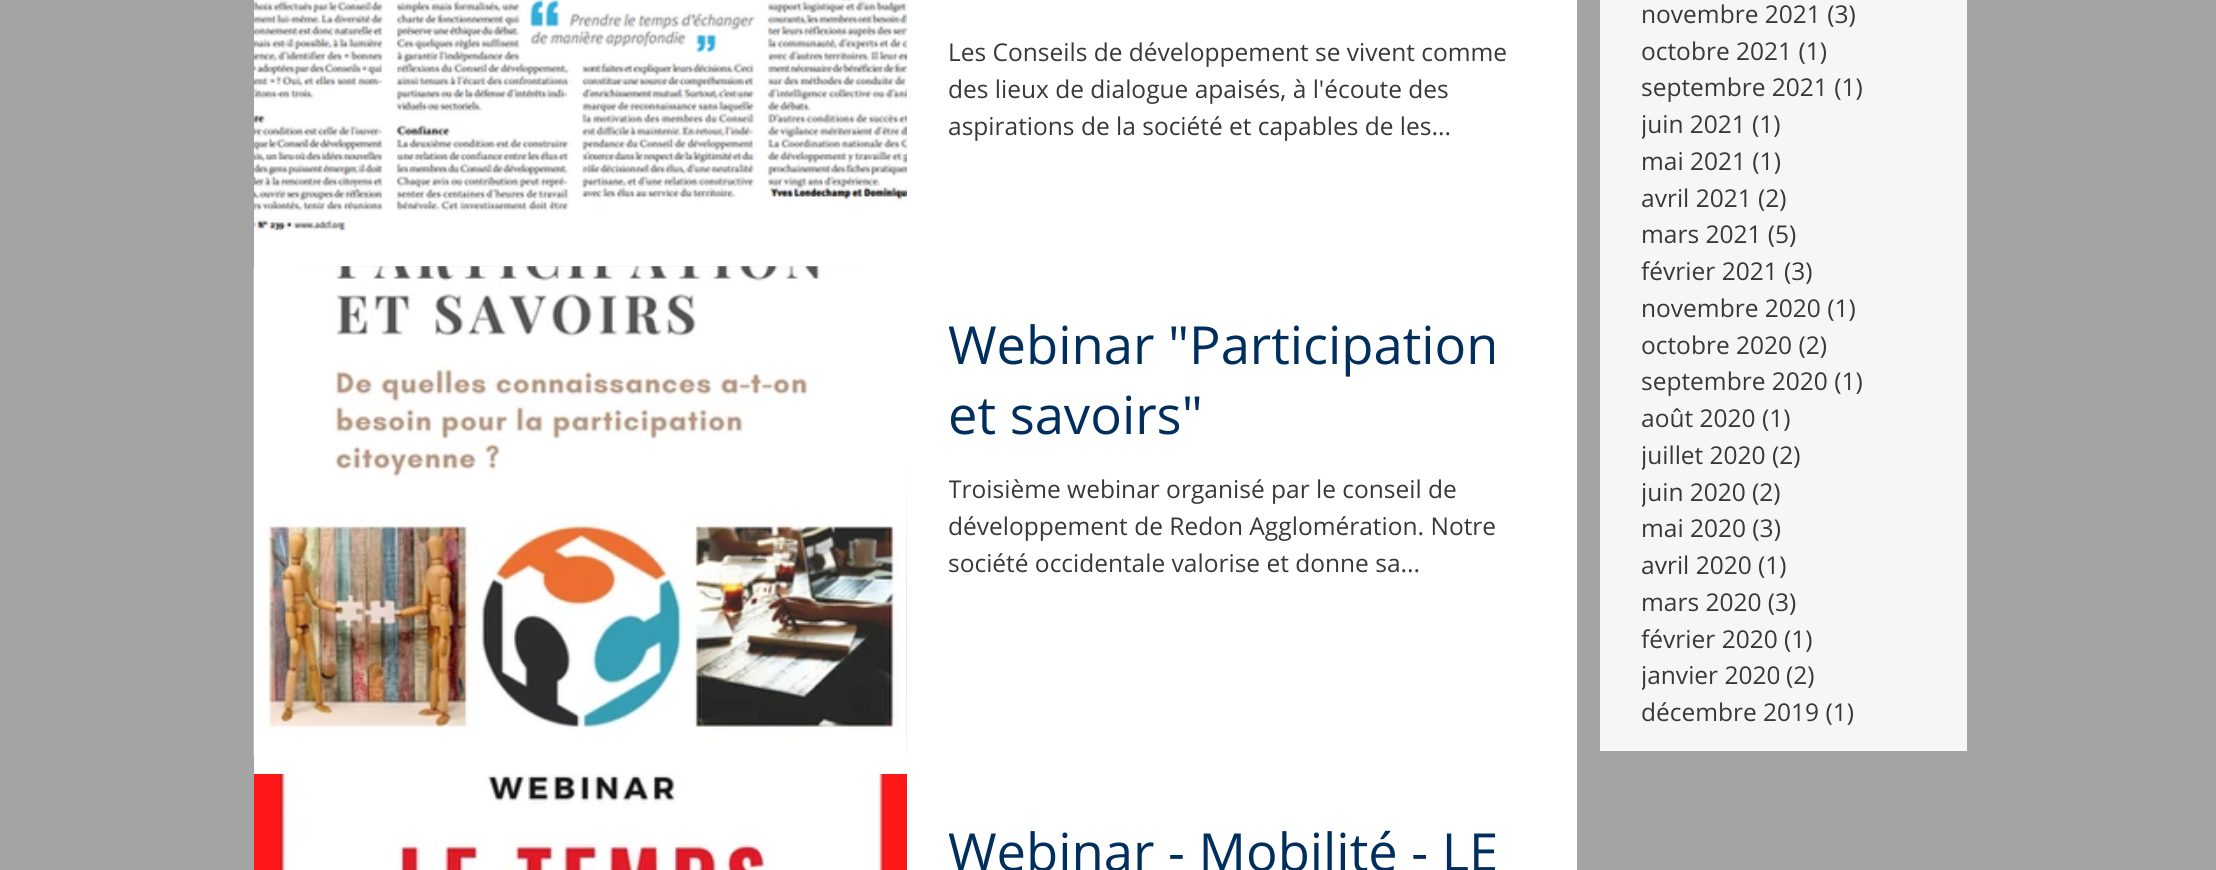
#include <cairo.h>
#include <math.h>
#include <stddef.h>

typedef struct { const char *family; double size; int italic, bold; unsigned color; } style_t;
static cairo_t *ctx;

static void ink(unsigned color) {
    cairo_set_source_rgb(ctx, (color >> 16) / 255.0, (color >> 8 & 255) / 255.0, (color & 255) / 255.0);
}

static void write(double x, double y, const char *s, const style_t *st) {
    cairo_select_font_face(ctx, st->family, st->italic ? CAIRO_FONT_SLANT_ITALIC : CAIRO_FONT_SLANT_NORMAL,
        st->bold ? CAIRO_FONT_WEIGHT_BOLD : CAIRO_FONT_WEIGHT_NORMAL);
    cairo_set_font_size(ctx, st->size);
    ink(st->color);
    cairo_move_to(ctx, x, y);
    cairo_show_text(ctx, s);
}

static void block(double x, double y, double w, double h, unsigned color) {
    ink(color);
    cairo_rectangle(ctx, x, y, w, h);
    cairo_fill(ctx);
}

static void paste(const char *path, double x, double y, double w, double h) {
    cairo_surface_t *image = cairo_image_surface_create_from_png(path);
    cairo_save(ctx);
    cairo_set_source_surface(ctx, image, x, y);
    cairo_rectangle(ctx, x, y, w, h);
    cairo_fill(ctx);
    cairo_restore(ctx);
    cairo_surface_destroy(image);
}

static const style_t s1 = {"Open Sans", 24.5, 0, 0, 0x383838};
static const style_t s2 = {"Open Sans", 52.5, 0, 0, 0x002e5d};

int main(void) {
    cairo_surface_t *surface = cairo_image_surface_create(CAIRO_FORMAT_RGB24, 2216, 870);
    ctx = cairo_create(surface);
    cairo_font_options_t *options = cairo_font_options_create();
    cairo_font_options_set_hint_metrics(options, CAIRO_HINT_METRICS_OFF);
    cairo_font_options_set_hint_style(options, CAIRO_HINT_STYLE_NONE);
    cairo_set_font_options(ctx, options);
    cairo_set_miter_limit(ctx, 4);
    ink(0xa4a4a4);
    cairo_paint(ctx);
    block(254, 0, 1323, 870, 0xffffff);
    paste("pic1.png", 254, 0, 653, 249);
    write(948, 61, "Les Conseils de développement se vivent comme", &s1);
    write(948, 98, "des lieux de dialogue apaisés, à l'écoute des", &s1);
    cairo_save(ctx);
    cairo_rectangle(ctx, 949, 33, 586, 111);
    cairo_clip(ctx);
    write(948, 135, "aspirations de la société et capables de les...", &s1);
    cairo_restore(ctx);
    paste("pic3.png", 254, 266, 653, 490);
    paste("pic2.png", 253, 266, 654, 491);
    cairo_save(ctx);
    cairo_rectangle(ctx, 949, 310, 586, 140);
    cairo_clip(ctx);
    write(948, 364, "Webinar \"Participation", &s2);
    cairo_restore(ctx);
    write(948, 434, "et savoirs\"", &s2);
    cairo_save(ctx);
    cairo_rectangle(ctx, 949, 471, 586, 110);
    cairo_clip(ctx);
    write(948, 498, "Troisième webinar organisé par le conseil de", &s1);
    cairo_restore(ctx);
    write(948, 535, "développement de Redon Agglomération. Notre", &s1);
    write(948, 572, "société occidentale valorise et donne sa...", &s1);
    paste("pic4.png", 254, 774, 653, 96);
    cairo_save(ctx);
    cairo_rectangle(ctx, 949, 817, 586, 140);
    cairo_clip(ctx);
    write(948, 871, "Webinar - Mobilité - LE", &s2);
    cairo_restore(ctx);
    block(1600, 0, 367, 751, 0xf6f6f6);
    write(1641, 23, "novembre 2021 (3)", &s1);
    write(1641, 60, "octobre 2021 (1)", &s1);
    write(1641, 96, "septembre 2021 (1)", &s1);
    cairo_save(ctx);
    cairo_rectangle(ctx, 1642, 105, 138, 37);
    cairo_clip(ctx);
    write(1641, 133, "juin 2021", &s1);
    cairo_restore(ctx);
    write(1752, 133, "(1)", &s1);
    write(1641, 170, "mai 2021 (1)", &s1);
    cairo_save(ctx);
    cairo_rectangle(ctx, 1642, 179, 145, 36);
    cairo_clip(ctx);
    write(1641, 207, "avril 2021", &s1);
    cairo_restore(ctx);
    write(1758, 207, "(2)", &s1);
    write(1641, 243, "mars 2021 (5)", &s1);
    write(1641, 280, "février 2021 (3)", &s1);
    write(1641, 317, "novembre 2020 (1)", &s1);
    write(1641, 354, "octobre 2020 (2)", &s1);
    write(1641, 390, "septembre 2020 (1)", &s1);
    cairo_save(ctx);
    cairo_rectangle(ctx, 1642, 399, 148, 37);
    cairo_clip(ctx);
    write(1641, 427, "août 2020", &s1);
    cairo_restore(ctx);
    write(1762, 427, "(1)", &s1);
    cairo_save(ctx);
    cairo_rectangle(ctx, 1642, 436, 159, 37);
    cairo_clip(ctx);
    write(1641, 464, "juillet 2020", &s1);
    cairo_restore(ctx);
    write(1772, 464, "(2)", &s1);
    cairo_save(ctx);
    cairo_rectangle(ctx, 1642, 473, 138, 36);
    cairo_clip(ctx);
    write(1641, 501, "juin 2020", &s1);
    cairo_restore(ctx);
    write(1752, 501, "(2)", &s1);
    write(1641, 537, "mai 2020 (3)", &s1);
    cairo_save(ctx);
    cairo_rectangle(ctx, 1642, 546, 145, 37);
    cairo_clip(ctx);
    write(1641, 574, "avril 2020", &s1);
    cairo_restore(ctx);
    write(1758, 574, "(1)", &s1);
    write(1641, 611, "mars 2020 (3)", &s1);
    write(1641, 648, "février 2020 (1)", &s1);
    cairo_save(ctx);
    cairo_rectangle(ctx, 1642, 656, 173, 37);
    cairo_clip(ctx);
    write(1641, 684, "janvier 2020", &s1);
    cairo_restore(ctx);
    write(1786, 684, "(2)", &s1);
    write(1641, 721, "décembre 2019 (1)", &s1);
    cairo_surface_write_to_png(surface, "screenshot.png");
    cairo_font_options_destroy(options);
    cairo_destroy(ctx);
    cairo_surface_destroy(surface);
    return 0;
}
